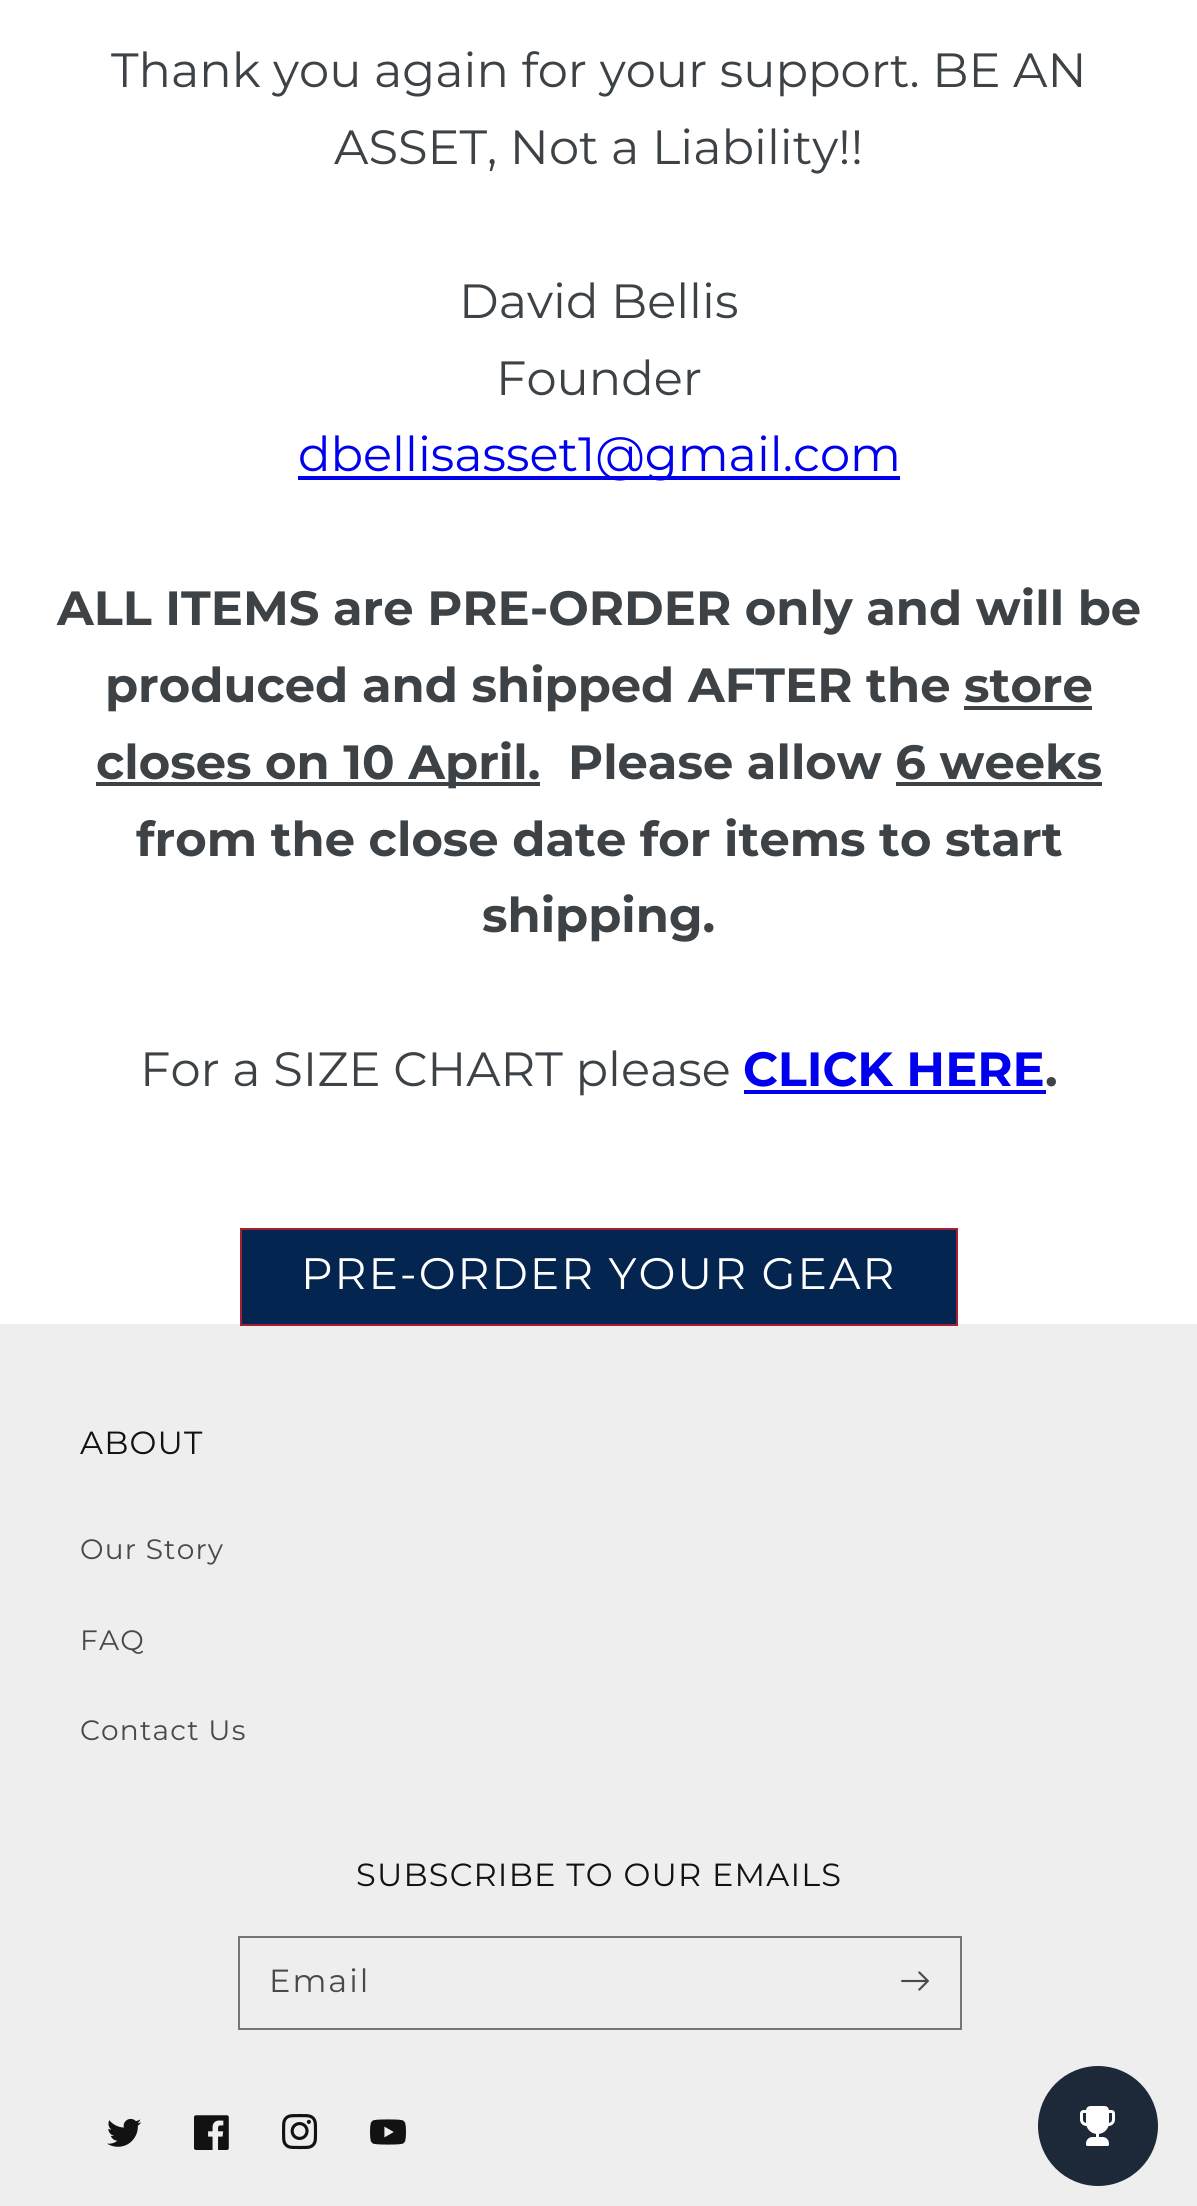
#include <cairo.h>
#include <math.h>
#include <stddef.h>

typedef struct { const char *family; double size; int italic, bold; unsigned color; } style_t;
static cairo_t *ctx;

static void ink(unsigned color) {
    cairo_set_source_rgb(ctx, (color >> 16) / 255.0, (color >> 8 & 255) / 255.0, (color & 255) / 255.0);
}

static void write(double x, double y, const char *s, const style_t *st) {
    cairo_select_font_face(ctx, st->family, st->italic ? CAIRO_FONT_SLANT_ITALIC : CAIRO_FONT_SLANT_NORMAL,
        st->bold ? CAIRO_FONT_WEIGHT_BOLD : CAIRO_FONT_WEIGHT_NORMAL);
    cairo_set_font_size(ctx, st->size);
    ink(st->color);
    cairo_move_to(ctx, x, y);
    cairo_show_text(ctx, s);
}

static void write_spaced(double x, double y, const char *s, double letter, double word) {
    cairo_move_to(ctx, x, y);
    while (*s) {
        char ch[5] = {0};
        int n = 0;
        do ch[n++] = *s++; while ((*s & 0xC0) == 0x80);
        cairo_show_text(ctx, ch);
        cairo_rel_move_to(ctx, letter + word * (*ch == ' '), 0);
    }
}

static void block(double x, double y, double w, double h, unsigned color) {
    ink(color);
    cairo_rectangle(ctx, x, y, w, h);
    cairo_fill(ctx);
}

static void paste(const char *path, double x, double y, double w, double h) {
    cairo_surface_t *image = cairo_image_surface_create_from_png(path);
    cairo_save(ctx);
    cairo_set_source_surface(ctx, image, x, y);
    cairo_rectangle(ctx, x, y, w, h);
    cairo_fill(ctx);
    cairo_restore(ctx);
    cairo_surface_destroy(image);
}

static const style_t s1 = {"Montserrat", 48, 0, 0, 0x3d4246};
static const style_t s2 = {"Montserrat", 48, 0, 0, 0x0000ee};
static const style_t s3 = {"Montserrat", 48, 0, 1, 0x3d4246};
static const style_t s4 = {"Montserrat", 48, 0, 1, 0x0000ee};

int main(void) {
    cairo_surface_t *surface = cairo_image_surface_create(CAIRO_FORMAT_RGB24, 1197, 2206);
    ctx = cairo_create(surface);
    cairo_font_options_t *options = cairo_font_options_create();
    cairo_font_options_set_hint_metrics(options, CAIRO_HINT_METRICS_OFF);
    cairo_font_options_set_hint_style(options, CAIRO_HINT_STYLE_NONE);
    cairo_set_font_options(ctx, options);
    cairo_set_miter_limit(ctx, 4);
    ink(0xffffff);
    cairo_paint(ctx);
    write(111, 87, "Thank you again for your support. BE AN", &s1);
    write(334, 164, "ASSET, Not a Liability!!", &s1);
    write(459, 318, "David Bellis", &s1);
    write(496, 395, "Founder", &s1);
    block(298, 476, 602, 4, 0x0000ee);
    write(298, 471, "dbellisasset1@gmail.com", &s2);
    write(57, 625, "ALL ITEMS are PRE-ORDER only and will be", &s3);
    write(105, 702, "produced and shipped AFTER the store", &s3);
    block(964, 706, 128, 4, 0x3d4246);
    block(96, 782, 444, 4, 0x3d4246);
    write(96, 779, "closes on 10 April.", &s3);
    write(568, 779, "Please allow 6 weeks", &s3);
    block(896, 782, 206, 4, 0x3d4246);
    write(136, 856, "from the close date for items to start", &s3);
    write(482, 932, "shipping.", &s3);
    write(140, 1086, "For a SIZE CHART please", &s1);
    write(743, 1086, "CLICK HERE", &s4);
    write(1045, 1086, ".", &s3);
    block(744, 1090, 302, 4, 0x0000ee);
    block(0, 1324, 1197, 882, 0xeeeeee);
    cairo_rectangle(ctx, 241, 1229, 716, 96);
    ink(0xa61e31);
    cairo_stroke(ctx);
    block(242, 1230, 714, 94, 0x04254f);
    cairo_select_font_face(ctx, "Montserrat", CAIRO_FONT_SLANT_NORMAL, CAIRO_FONT_WEIGHT_NORMAL);
    cairo_set_font_size(ctx, 44);
    ink(0xffffff);
    write_spaced(301, 1289, "PRE-ORDER YOUR GEAR", 2, 0);
    cairo_set_font_size(ctx, 32);
    ink(0x121212);
    write_spaced(80, 1454, "ABOUT", 1.2, 0);
    cairo_set_font_size(ctx, 28);
    ink(0x494949);
    write_spaced(80, 1559, "Our Story", 1.2, 0);
    write_spaced(80, 1650, "FAQ", 1.2, 0);
    write_spaced(80, 1740, "Contact Us", 1.2, 0);
    cairo_set_font_size(ctx, 32);
    ink(0x121212);
    write_spaced(356, 1886, "SUBSCRIBE TO OUR EMAILS", 1.2, 0);
    cairo_rectangle(ctx, 239, 1937, 722, 92);
    ink(0x757575);
    cairo_stroke(ctx);
    ink(0x494949);
    write_spaced(269, 1992, "Email", 2, 0);
    paste("pic1.png", 901, 1971, 28, 20);
    paste("pic2.png", 107, 2118, 35, 29);
    paste("pic3.png", 194, 2115, 35, 35);
    paste("pic4.png", 282, 2114, 36, 36);
    paste("pic5.png", 370, 2119, 36, 26);
    ink(0x1d2939);
    cairo_arc(ctx, 1098, 2126, 60, 0, 2 * M_PI);
    cairo_fill(ctx);
    paste("pic6.png", 1080, 2106, 35, 40);
    cairo_surface_write_to_png(surface, "screenshot.png");
    cairo_font_options_destroy(options);
    cairo_destroy(ctx);
    cairo_surface_destroy(surface);
    return 0;
}
